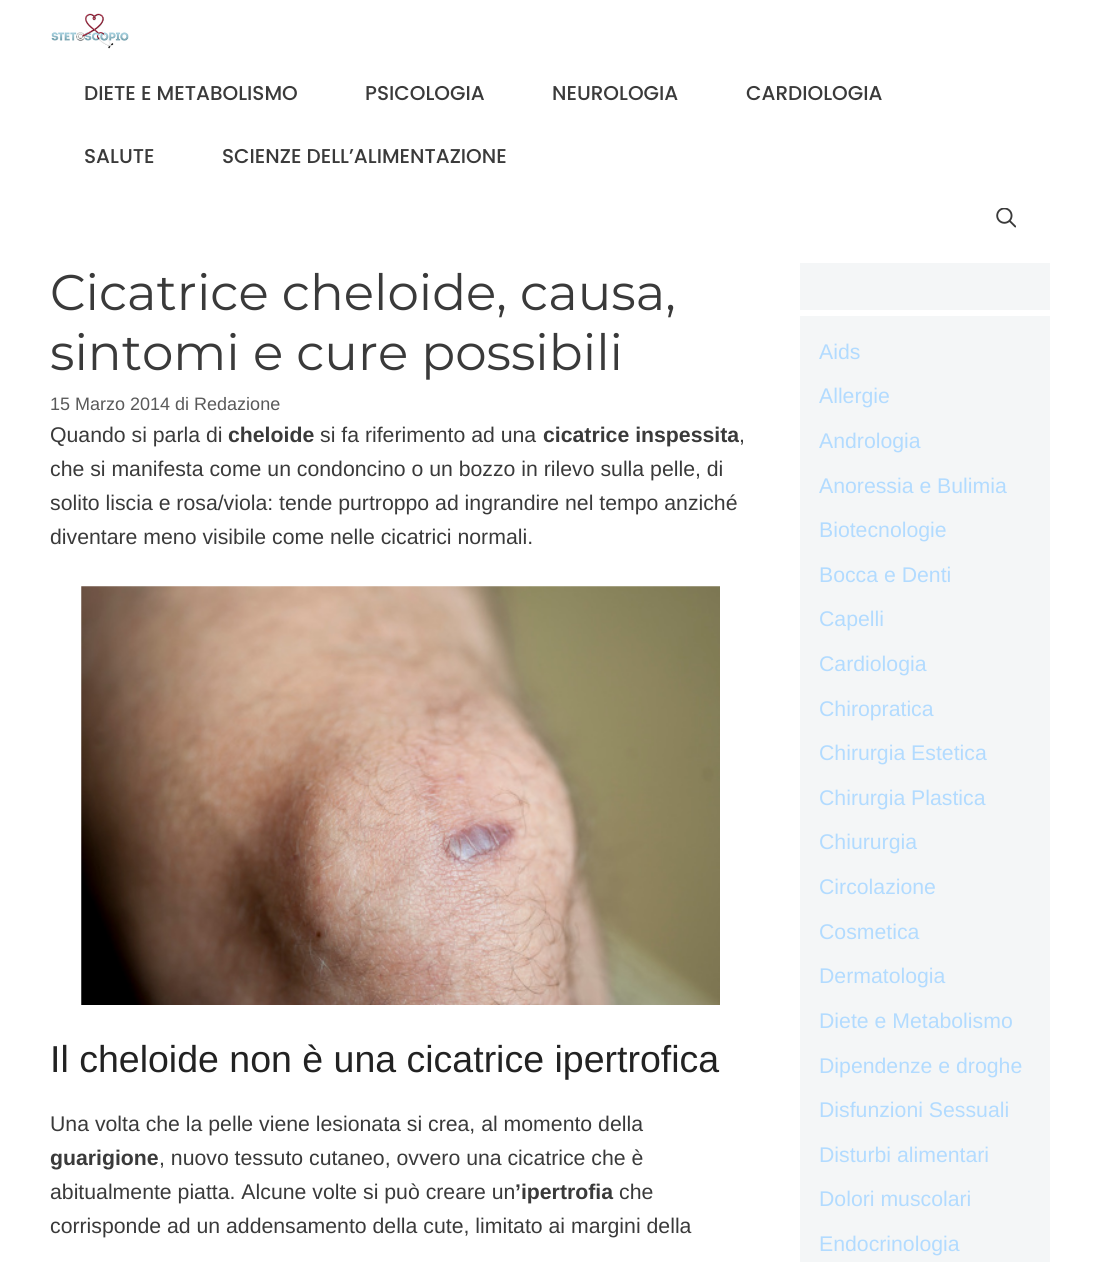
#include <cairo.h>
#include <math.h>
#include <stddef.h>

typedef struct { const char *family; double size; int italic, bold; unsigned color; } style_t;
static cairo_t *ctx;

static void ink(unsigned color) {
    cairo_set_source_rgb(ctx, (color >> 16) / 255.0, (color >> 8 & 255) / 255.0, (color & 255) / 255.0);
}

static void write(double x, double y, const char *s, const style_t *st) {
    cairo_select_font_face(ctx, st->family, st->italic ? CAIRO_FONT_SLANT_ITALIC : CAIRO_FONT_SLANT_NORMAL,
        st->bold ? CAIRO_FONT_WEIGHT_BOLD : CAIRO_FONT_WEIGHT_NORMAL);
    cairo_set_font_size(ctx, st->size);
    ink(st->color);
    cairo_move_to(ctx, x, y);
    cairo_show_text(ctx, s);
}

static void block(double x, double y, double w, double h, unsigned color) {
    ink(color);
    cairo_rectangle(ctx, x, y, w, h);
    cairo_fill(ctx);
}

static void paste(const char *path, double x, double y, double w, double h) {
    cairo_surface_t *image = cairo_image_surface_create_from_png(path);
    cairo_save(ctx);
    cairo_set_source_surface(ctx, image, x, y);
    cairo_rectangle(ctx, x, y, w, h);
    cairo_fill(ctx);
    cairo_restore(ctx);
    cairo_surface_destroy(image);
}

static const style_t s1 = {"Poppins Medium", 20, 0, 0, 0x3a3a3a};
static const style_t s2 = {"Montserrat", 50, 0, 0, 0x3a3a3a};
static const style_t s3 = {"Liberation Sans", 18, 0, 0, 0x595959};
static const style_t s4 = {"Liberation Sans", 21.25, 0, 0, 0x3a3a3a};
static const style_t s5 = {"Liberation Sans", 21.25, 0, 1, 0x3a3a3a};
static const style_t s6 = {"Liberation Sans", 37.5, 0, 0, 0x222222};
static const style_t s7 = {"Liberation Sans", 21.25, 0, 0, 0xb2dbff};

int main(void) {
    cairo_surface_t *surface = cairo_image_surface_create(CAIRO_FORMAT_RGB24, 1099, 1262);
    ctx = cairo_create(surface);
    cairo_font_options_t *options = cairo_font_options_create();
    cairo_font_options_set_hint_metrics(options, CAIRO_HINT_METRICS_OFF);
    cairo_font_options_set_hint_style(options, CAIRO_HINT_STYLE_NONE);
    cairo_set_font_options(ctx, options);
    cairo_set_miter_limit(ctx, 4);
    ink(0xffffff);
    cairo_paint(ctx);
    paste("pic1.png", 51, 13, 78, 36);
    write(84, 100, "DIETE E METABOLISMO", &s1);
    write(365, 100, "PSICOLOGIA", &s1);
    write(552, 100, "NEUROLOGIA", &s1);
    write(746, 100, "CARDIOLOGIA", &s1);
    write(84, 163, "SALUTE", &s1);
    write(222, 163, "SCIENZE DELL’ALIMENTAZIONE", &s1);
    paste("pic2.png", 996, 208, 20, 20);
    write(50, 310, "Cicatrice cheloide, causa,", &s2);
    write(50, 370, "sintomi e cure possibili", &s2);
    write(50, 410, "15 Marzo 2014 di Redazione", &s3);
    write(50, 442, "Quando si parla di", &s4);
    write(228, 442, "cheloide", &s5);
    write(320, 442, "si fa riferimento ad una", &s4);
    write(543, 442, "cicatrice inspessita", &s5);
    write(739, 442, ",", &s4);
    write(50, 476, "che si manifesta come un condoncino o un bozzo in rilevo sulla pelle, di", &s4);
    write(50, 510, "solito liscia e rosa/viola: tende purtroppo ad ingrandire nel tempo anziché", &s4);
    write(50, 544, "diventare meno visibile come nelle cicatrici normali.", &s4);
    paste("pic3.png", 81, 586, 639, 419);
    write(50, 1072, "Il cheloide non è una cicatrice ipertrofica", &s6);
    write(50, 1131, "Una volta che la pelle viene lesionata si crea, al momento della", &s4);
    write(50, 1165, "guarigione", &s5);
    write(159, 1165, ", nuovo tessuto cutaneo, ovvero una cicatrice che è", &s4);
    write(50, 1199, "abitualmente piatta. Alcune volte si può creare un", &s4);
    write(515, 1199, "’ipertrofia", &s5);
    write(619, 1199, "che", &s4);
    write(50, 1233, "corrisponde ad un addensamento della cute, limitato ai margini della", &s4);
    block(800, 263, 250, 47, 0xf4f6f7);
    block(800, 316, 250, 946, 0xf4f6f7);
    write(819, 359, "Aids", &s7);
    write(819, 403, "Allergie", &s7);
    write(819, 448, "Andrologia", &s7);
    write(819, 493, "Anoressia e Bulimia", &s7);
    write(819, 537, "Biotecnologie", &s7);
    write(819, 582, "Bocca e Denti", &s7);
    write(819, 626, "Capelli", &s7);
    write(819, 671, "Cardiologia", &s7);
    write(819, 716, "Chiropratica", &s7);
    write(819, 760, "Chirurgia Estetica", &s7);
    write(819, 805, "Chirurgia Plastica", &s7);
    write(819, 849, "Chiururgia", &s7);
    write(819, 894, "Circolazione", &s7);
    write(819, 939, "Cosmetica", &s7);
    write(819, 983, "Dermatologia", &s7);
    write(819, 1028, "Diete e Metabolismo", &s7);
    write(819, 1073, "Dipendenze e droghe", &s7);
    write(819, 1117, "Disfunzioni Sessuali", &s7);
    write(819, 1162, "Disturbi alimentari", &s7);
    write(819, 1206, "Dolori muscolari", &s7);
    write(819, 1251, "Endocrinologia", &s7);
    cairo_surface_write_to_png(surface, "screenshot.png");
    cairo_font_options_destroy(options);
    cairo_destroy(ctx);
    cairo_surface_destroy(surface);
    return 0;
}
